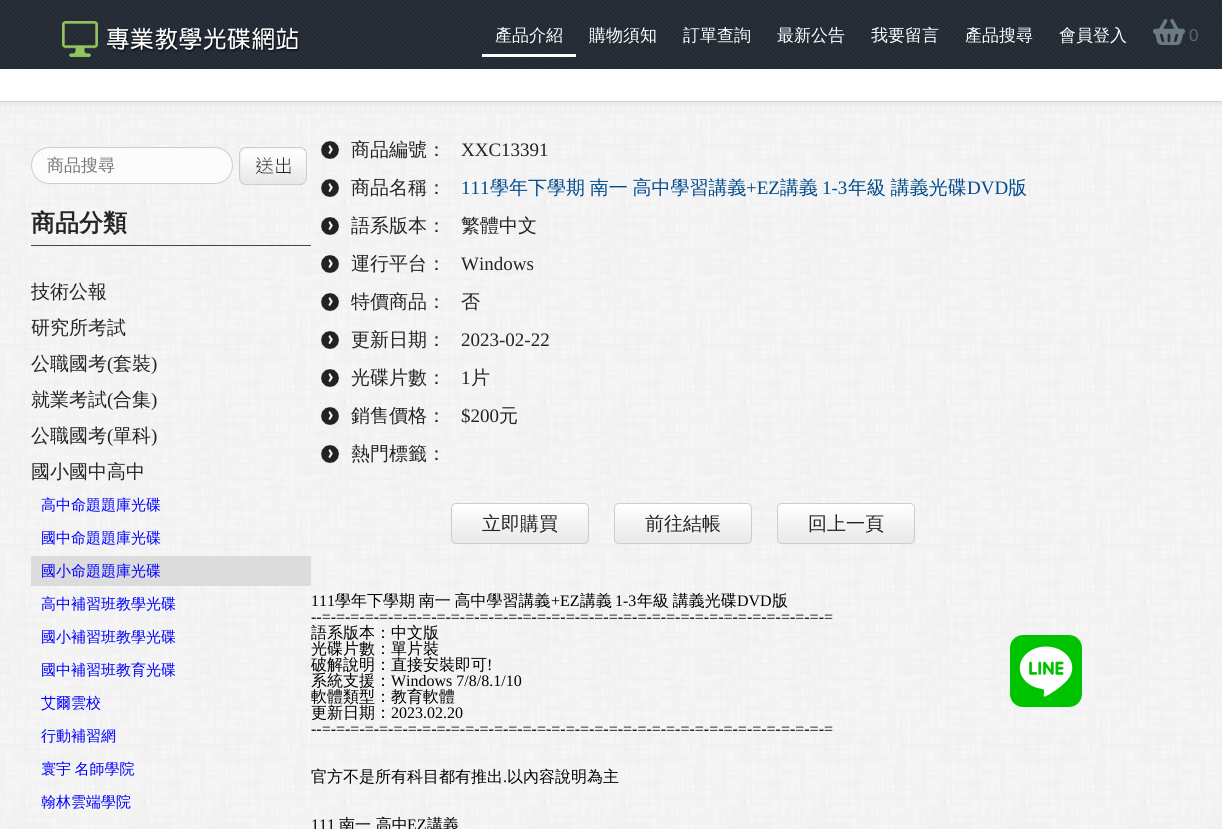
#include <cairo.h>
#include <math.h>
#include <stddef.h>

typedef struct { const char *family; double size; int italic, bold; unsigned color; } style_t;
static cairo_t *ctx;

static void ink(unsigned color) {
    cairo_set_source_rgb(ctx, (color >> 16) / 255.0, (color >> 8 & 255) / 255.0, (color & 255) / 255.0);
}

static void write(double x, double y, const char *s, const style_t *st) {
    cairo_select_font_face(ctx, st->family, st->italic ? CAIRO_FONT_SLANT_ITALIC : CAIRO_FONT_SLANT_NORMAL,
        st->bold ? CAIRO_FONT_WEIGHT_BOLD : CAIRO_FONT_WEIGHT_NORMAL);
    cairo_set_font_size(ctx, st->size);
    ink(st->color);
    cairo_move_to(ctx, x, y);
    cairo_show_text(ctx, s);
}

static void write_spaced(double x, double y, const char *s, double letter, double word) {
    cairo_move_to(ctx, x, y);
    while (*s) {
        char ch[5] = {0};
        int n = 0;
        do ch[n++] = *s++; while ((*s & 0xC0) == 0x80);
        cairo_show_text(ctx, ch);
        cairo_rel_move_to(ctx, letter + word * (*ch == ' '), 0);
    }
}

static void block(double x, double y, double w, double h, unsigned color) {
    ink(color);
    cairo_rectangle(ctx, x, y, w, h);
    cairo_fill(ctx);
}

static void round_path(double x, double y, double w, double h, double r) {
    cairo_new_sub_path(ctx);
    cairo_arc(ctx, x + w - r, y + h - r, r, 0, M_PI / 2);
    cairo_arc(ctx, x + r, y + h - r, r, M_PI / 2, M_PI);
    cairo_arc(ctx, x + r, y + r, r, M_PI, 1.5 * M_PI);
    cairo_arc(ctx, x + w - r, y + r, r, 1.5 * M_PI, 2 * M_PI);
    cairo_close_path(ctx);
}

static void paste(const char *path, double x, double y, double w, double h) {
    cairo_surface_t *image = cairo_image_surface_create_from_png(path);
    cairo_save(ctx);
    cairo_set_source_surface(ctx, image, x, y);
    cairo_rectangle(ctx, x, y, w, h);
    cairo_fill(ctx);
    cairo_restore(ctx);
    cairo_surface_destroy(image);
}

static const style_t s1 = {"WenQuanYi Zen Hei Medium", 17, 0, 0, 0xffffff};
static const style_t s2 = {"Liberation Sans", 17, 0, 0, 0x5a666e};
static const style_t s3 = {"WenQuanYi Zen Hei Medium", 17, 0, 0, 0x757575};
static const style_t s4 = {"WenQuanYi Zen Hei", 24, 0, 1, 0x242424};
static const style_t s5 = {"WenQuanYi Zen Hei Medium", 19, 0, 0, 0x242424};
static const style_t s6 = {"Liberation Serif", 19, 0, 0, 0x242424};
static const style_t s7 = {"WenQuanYi Zen Hei Medium", 15, 0, 0, 0x0000ff};
static const style_t s8 = {"Liberation Serif", 19, 0, 0, 0x004a8e};
static const style_t s9 = {"WenQuanYi Zen Hei Medium", 19, 0, 0, 0x004a8e};
static const style_t s10 = {"Liberation Serif", 16, 0, 0, 0x000000};
static const style_t s11 = {"WenQuanYi Zen Hei Medium", 16, 0, 0, 0x000000};

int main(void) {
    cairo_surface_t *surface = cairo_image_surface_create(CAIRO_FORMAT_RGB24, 1222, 829);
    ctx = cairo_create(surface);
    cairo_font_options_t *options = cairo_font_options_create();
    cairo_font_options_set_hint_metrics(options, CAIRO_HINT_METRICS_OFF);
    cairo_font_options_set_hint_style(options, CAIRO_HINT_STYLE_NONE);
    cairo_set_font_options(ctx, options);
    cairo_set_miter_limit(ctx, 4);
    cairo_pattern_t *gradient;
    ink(0xffffff);
    cairo_paint(ctx);
    paste("pic1.png", 0, 0, 1222, 69);
    paste("pic2.png", 62, 21, 238, 36);
    block(482, 54, 94, 3, 0xffffff);
    write(495, 41, "產品介紹", &s1);
    write(589, 41, "購物須知", &s1);
    write(683, 41, "訂單查詢", &s1);
    write(777, 41, "最新公告", &s1);
    write(871, 41, "我要留言", &s1);
    write(965, 41, "產品搜尋", &s1);
    write(1059, 41, "會員登入", &s1);
    paste("pic3.png", 1153, 19, 32, 26);
    write(1189, 41, "0", &s2);
    paste("pic4.png", 0, 114, 1222, 715);
    paste("pic5.png", 0, 101, 1222, 13);
    ink(0xfcfcfc);
    round_path(31.5, 147.5, 201, 36, 18);
    cairo_fill_preserve(ctx);
    ink(0xcccccc);
    cairo_set_line_width(ctx, 1);
    cairo_stroke(ctx);
    write(47, 171, "商品搜尋", &s3);
    paste("pic6.png", 238, 147, 69, 39);
    block(31, 245, 280, 1, 0x444444);
    write(31, 231, "商品分類", &s4);
    write(31, 298, "技術公報", &s5);
    write(31, 334, "研究所考試", &s5);
    write(31, 370, "公職國考", &s5);
    write(107, 370, "(", &s6);
    write(113, 370, "套裝", &s5);
    write(151, 370, ")", &s6);
    write(31, 406, "就業考試", &s5);
    write(107, 406, "(", &s6);
    write(113, 406, "合集", &s5);
    write(151, 406, ")", &s6);
    write(31, 442, "公職國考", &s5);
    write(107, 442, "(", &s6);
    write(113, 442, "單科", &s5);
    write(151, 442, ")", &s6);
    write(31, 478, "國小國中高中", &s5);
    write(41, 510, "高中命題題庫光碟", &s7);
    write(41, 543, "國中命題題庫光碟", &s7);
    block(31, 556, 280, 30, 0xdcdcdc);
    write(41, 576, "國小命題題庫光碟", &s7);
    write(41, 609, "高中補習班教學光碟", &s7);
    write(41, 642, "國小補習班教學光碟", &s7);
    write(41, 675, "國中補習班教育光碟", &s7);
    write(41, 708, "艾爾雲校", &s7);
    write(41, 741, "行動補習網", &s7);
    write_spaced(41, 774, "寰宇 名師學院", 0, -1);
    write(41, 807, "翰林雲端學院", &s7);
    paste("pic7.png", 321, 141, 18, 18);
    write(351, 156, "商品編號：", &s5);
    write(461, 156, "XXC13391", &s6);
    paste("pic8.png", 321, 179, 18, 18);
    write(351, 194, "商品名稱：", &s5);
    write(461, 194, "111", &s8);
    cairo_select_font_face(ctx, "WenQuanYi Zen Hei Medium", CAIRO_FONT_SLANT_NORMAL, CAIRO_FONT_WEIGHT_NORMAL);
    write_spaced(490, 194, "學年下學期 南一 高中學習講義", 0, -1);
    write(746, 194, "+EZ", &s8);
    write(780, 194, "講義", &s9);
    write(822, 194, "1-3", &s8);
    cairo_select_font_face(ctx, "WenQuanYi Zen Hei Medium", CAIRO_FONT_SLANT_NORMAL, CAIRO_FONT_WEIGHT_NORMAL);
    write_spaced(848, 194, "年級 講義光碟", 0, -1);
    write(967, 194, "DVD", &s8);
    write(1008, 194, "版", &s9);
    paste("pic9.png", 321, 217, 18, 18);
    write(351, 232, "語系版本：", &s5);
    write(461, 232, "繁體中文", &s5);
    paste("pic10.png", 321, 255, 18, 18);
    write(351, 270, "運行平台：", &s5);
    write(461, 270, "Windows", &s6);
    paste("pic11.png", 321, 293, 18, 18);
    write(351, 308, "特價商品：", &s5);
    write(461, 308, "否", &s5);
    paste("pic12.png", 321, 331, 18, 18);
    write(351, 346, "更新日期：", &s5);
    write(461, 346, "2023-02-22", &s6);
    paste("pic13.png", 321, 369, 18, 18);
    write(351, 384, "光碟片數：", &s5);
    write(461, 384, "1", &s6);
    write(471, 384, "片", &s5);
    paste("pic14.png", 321, 407, 18, 18);
    write(351, 422, "銷售價格：", &s5);
    write(461, 422, "$200", &s6);
    write(499, 422, "元", &s5);
    paste("pic15.png", 321, 445, 18, 18);
    write(351, 460, "熱門標籤：", &s5);
    cairo_save(ctx);
    round_path(451, 503, 138, 41, 5);
    cairo_clip(ctx);
    gradient = cairo_pattern_create_linear(520, 504, 520, 543);
    cairo_pattern_add_color_stop_rgba(gradient, 0, 1, 1, 1, 1);
    cairo_pattern_add_color_stop_rgba(gradient, 1, 0.91, 0.91, 0.91, 1);
    cairo_set_source(ctx, gradient);
    cairo_pattern_destroy(gradient);
    cairo_rectangle(ctx, 451, 504, 138, 39);
    cairo_fill(ctx);
    cairo_restore(ctx);
    round_path(451.5, 503.5, 137, 40, 4.5);
    ink(0xcdcdcd);
    cairo_stroke(ctx);
    write(482, 530, "立即購買", &s5);
    cairo_save(ctx);
    round_path(614, 503, 138, 41, 5);
    cairo_clip(ctx);
    gradient = cairo_pattern_create_linear(683, 504, 683, 543);
    cairo_pattern_add_color_stop_rgba(gradient, 0, 1, 1, 1, 1);
    cairo_pattern_add_color_stop_rgba(gradient, 1, 0.91, 0.91, 0.91, 1);
    cairo_set_source(ctx, gradient);
    cairo_pattern_destroy(gradient);
    cairo_rectangle(ctx, 614, 504, 138, 39);
    cairo_fill(ctx);
    cairo_restore(ctx);
    round_path(614.5, 503.5, 137, 40, 4.5);
    ink(0xcdcdcd);
    cairo_stroke(ctx);
    write(645, 530, "前往結帳", &s5);
    cairo_save(ctx);
    round_path(777, 503, 138, 41, 5);
    cairo_clip(ctx);
    gradient = cairo_pattern_create_linear(846, 504, 846, 543);
    cairo_pattern_add_color_stop_rgba(gradient, 0, 1, 1, 1, 1);
    cairo_pattern_add_color_stop_rgba(gradient, 1, 0.91, 0.91, 0.91, 1);
    cairo_set_source(ctx, gradient);
    cairo_pattern_destroy(gradient);
    cairo_rectangle(ctx, 777, 504, 138, 39);
    cairo_fill(ctx);
    cairo_restore(ctx);
    round_path(777.5, 503.5, 137, 40, 4.5);
    ink(0xcdcdcd);
    cairo_stroke(ctx);
    write(808, 530, "回上一頁", &s5);
    write(311, 606, "111", &s10);
    cairo_select_font_face(ctx, "WenQuanYi Zen Hei Medium", CAIRO_FONT_SLANT_NORMAL, CAIRO_FONT_WEIGHT_NORMAL);
    write_spaced(335, 606, "學年下學期 南一 高中學習講義", 0, -1);
    write(551, 606, "+EZ", &s10);
    write(580, 606, "講義", &s11);
    write(615, 606, "1-3", &s10);
    cairo_select_font_face(ctx, "WenQuanYi Zen Hei Medium", CAIRO_FONT_SLANT_NORMAL, CAIRO_FONT_WEIGHT_NORMAL);
    write_spaced(637, 606, "年級 講義光碟", 0, -1);
    write(737, 606, "DVD", &s10);
    write(772, 606, "版", &s11);
    write(311, 622, "--=-=-=-=-=-=-=-=-=-=-=-=-=-=-=-=-=-=-=-=-=-=-=-=-=-=-=-=-=-=-=-=-=-=-=-=", &s10);
    write(311, 638, "語系版本：中文版", &s11);
    write(311, 654, "光碟片數：單片裝", &s11);
    write(311, 670, "破解說明：直接安裝即可", &s11);
    write(487, 670, "!", &s10);
    write(311, 686, "系統支援：", &s11);
    write(391, 686, "Windows 7/8/8.1/10", &s10);
    write(311, 702, "軟體類型：教育軟體", &s11);
    write(311, 718, "更新日期：", &s11);
    write(391, 718, "2023.02.20", &s10);
    write(311, 734, "--=-=-=-=-=-=-=-=-=-=-=-=-=-=-=-=-=-=-=-=-=-=-=-=-=-=-=-=-=-=-=-=-=-=-=-=", &s10);
    write(311, 782, "官方不是所有科目都有推出", &s11);
    write(503, 782, ".", &s10);
    write(507, 782, "以內容說明為主", &s11);
    write(311, 830, "111", &s10);
    write(339, 830, "南一 高中", &s11);
    write(407, 830, "EZ", &s10);
    write(427, 830, "講義", &s11);
    paste("pic16.png", 1010, 635, 72, 72);
    cairo_surface_write_to_png(surface, "screenshot.png");
    cairo_font_options_destroy(options);
    cairo_destroy(ctx);
    cairo_surface_destroy(surface);
    return 0;
}
